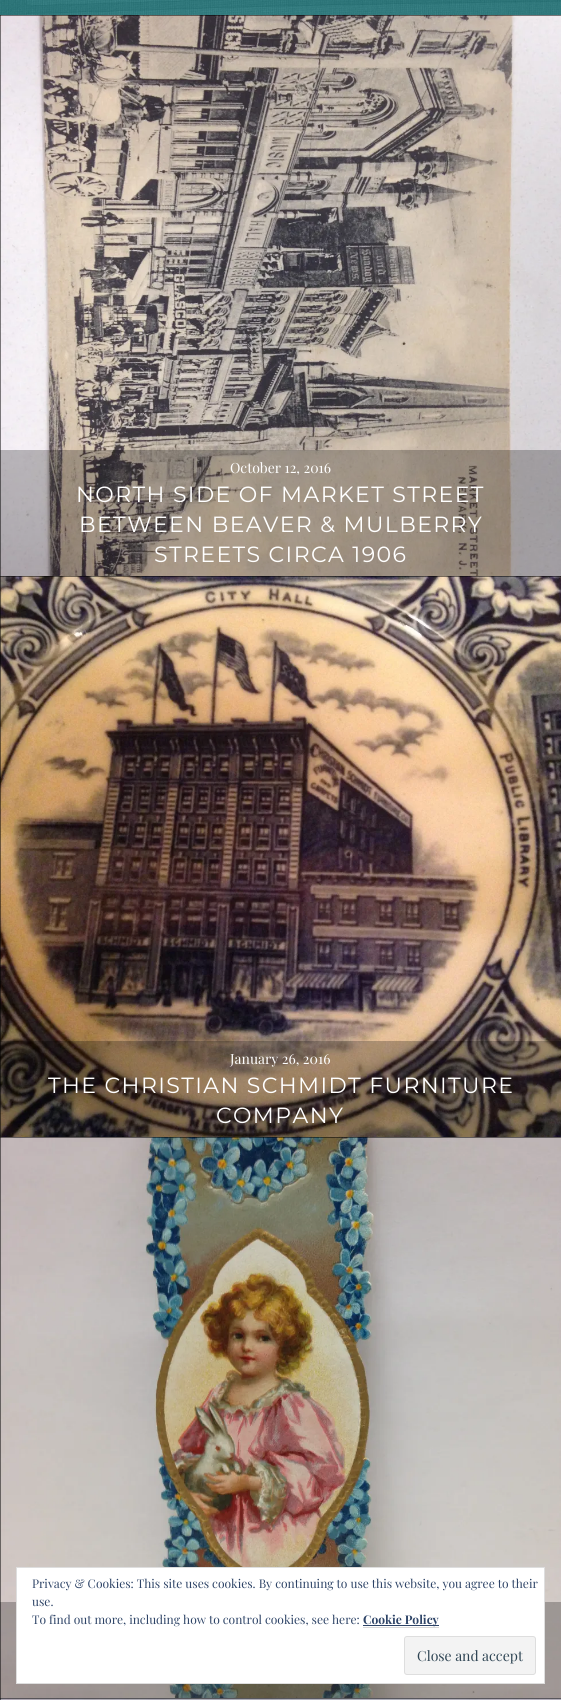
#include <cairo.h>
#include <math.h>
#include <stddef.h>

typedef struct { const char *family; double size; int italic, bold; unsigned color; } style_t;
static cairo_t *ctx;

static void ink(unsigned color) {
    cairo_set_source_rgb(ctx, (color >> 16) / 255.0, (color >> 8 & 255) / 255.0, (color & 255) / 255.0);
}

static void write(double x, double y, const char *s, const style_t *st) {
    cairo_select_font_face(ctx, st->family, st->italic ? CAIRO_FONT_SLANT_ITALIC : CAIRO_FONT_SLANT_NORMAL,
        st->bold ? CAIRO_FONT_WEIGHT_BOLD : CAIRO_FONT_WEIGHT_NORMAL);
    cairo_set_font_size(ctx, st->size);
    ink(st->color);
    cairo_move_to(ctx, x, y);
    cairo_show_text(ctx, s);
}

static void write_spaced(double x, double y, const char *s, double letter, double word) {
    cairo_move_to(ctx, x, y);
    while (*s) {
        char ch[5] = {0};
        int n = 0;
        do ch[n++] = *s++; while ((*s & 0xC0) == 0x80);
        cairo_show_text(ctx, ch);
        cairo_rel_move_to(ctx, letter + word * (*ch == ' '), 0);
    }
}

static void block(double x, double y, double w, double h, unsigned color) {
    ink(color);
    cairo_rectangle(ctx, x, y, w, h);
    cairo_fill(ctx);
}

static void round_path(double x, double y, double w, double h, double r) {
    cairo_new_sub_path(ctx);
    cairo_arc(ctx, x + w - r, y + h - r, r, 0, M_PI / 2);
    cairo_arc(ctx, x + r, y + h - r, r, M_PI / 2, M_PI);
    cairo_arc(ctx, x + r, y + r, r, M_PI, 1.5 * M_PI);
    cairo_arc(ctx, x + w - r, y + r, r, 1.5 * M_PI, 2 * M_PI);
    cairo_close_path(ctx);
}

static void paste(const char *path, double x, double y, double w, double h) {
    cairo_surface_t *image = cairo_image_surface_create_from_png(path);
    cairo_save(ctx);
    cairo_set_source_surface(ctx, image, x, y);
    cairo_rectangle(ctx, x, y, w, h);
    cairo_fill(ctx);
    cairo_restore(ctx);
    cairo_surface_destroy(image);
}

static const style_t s1 = {"Playfair Display", 14, 0, 0, 0xffffff};
static const style_t s2 = {"Playfair Display", 12, 0, 0, 0x2e4467};
static const style_t s3 = {"Playfair Display", 12, 0, 1, 0x2e4467};
static const style_t s4 = {"Playfair Display", 14, 0, 0, 0x2e4453};

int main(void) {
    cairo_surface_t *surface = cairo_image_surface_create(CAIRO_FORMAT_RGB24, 561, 1700);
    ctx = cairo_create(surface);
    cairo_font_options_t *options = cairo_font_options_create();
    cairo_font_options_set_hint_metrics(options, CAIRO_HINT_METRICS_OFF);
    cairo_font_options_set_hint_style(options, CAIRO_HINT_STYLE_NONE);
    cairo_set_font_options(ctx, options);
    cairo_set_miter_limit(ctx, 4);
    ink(0xffffff);
    cairo_paint(ctx);
    paste("pic1.png", 0, 0, 561, 15);
    block(0, 15, 561, 1685, 0x000000);
    paste("pic2.png", 0, 15, 561, 561);
    cairo_set_source_rgba(ctx, 0, 0, 0, 0.25);
    cairo_rectangle(ctx, 0, 450, 561, 126);
    cairo_fill(ctx);
    write(230, 473, "October 12, 2016", &s1);
    cairo_select_font_face(ctx, "Montserrat", CAIRO_FONT_SLANT_NORMAL, CAIRO_FONT_WEIGHT_NORMAL);
    cairo_set_font_size(ctx, 22);
    write_spaced(76, 502, "NORTH SIDE OF MARKET STREET", 1.4, 0);
    write_spaced(79, 532, "BETWEEN BEAVER & MULBERRY", 1.4, 0);
    write_spaced(154, 562, "STREETS CIRCA 1906", 1.4, 0);
    paste("pic3.png", 0, 576, 561, 561);
    cairo_set_source_rgba(ctx, 0, 0, 0, 0.25);
    cairo_rectangle(ctx, 0, 1041, 561, 96);
    cairo_fill(ctx);
    write(230, 1064, "January 26, 2016", &s1);
    cairo_select_font_face(ctx, "Montserrat", CAIRO_FONT_SLANT_NORMAL, CAIRO_FONT_WEIGHT_NORMAL);
    cairo_set_font_size(ctx, 22);
    write_spaced(48, 1093, "THE CHRISTIAN SCHMIDT FURNITURE", 1.4, 0);
    write_spaced(216, 1123, "COMPANY", 1.4, 0);
    paste("pic4.png", 0, 1137, 561, 561);
    cairo_set_source_rgba(ctx, 0, 0, 0, 0.25);
    cairo_rectangle(ctx, 0, 1602, 561, 96);
    cairo_fill(ctx);
    paste("pic5.png", 0, 1698, 561, 2);
    ink(0xffffff);
    cairo_rectangle(ctx, 16.5, 1567.5, 528, 116);
    cairo_fill_preserve(ctx);
    ink(0xdedede);
    cairo_set_line_width(ctx, 1);
    cairo_stroke(ctx);
    write(32, 1588, "Privacy & Cookies: This site uses cookies. By continuing to use this website, you agree to their", &s2);
    write(32, 1606, "use.", &s2);
    write(32, 1624, "To find out more, including how to control cookies, see here:", &s2);
    block(363, 1625, 76, 1, 0x2e4467);
    write(363, 1624, "Cookie Policy", &s3);
    block(363, 1627, 76, 1, 0xd9d9d9);
    ink(0xf3f3f3);
    round_path(404.5, 1636.5, 131, 38, 2.5);
    cairo_fill_preserve(ctx);
    ink(0xdedede);
    cairo_stroke(ctx);
    write(417, 1661, "Close and accept", &s4);
    cairo_surface_write_to_png(surface, "screenshot.png");
    cairo_font_options_destroy(options);
    cairo_destroy(ctx);
    cairo_surface_destroy(surface);
    return 0;
}
